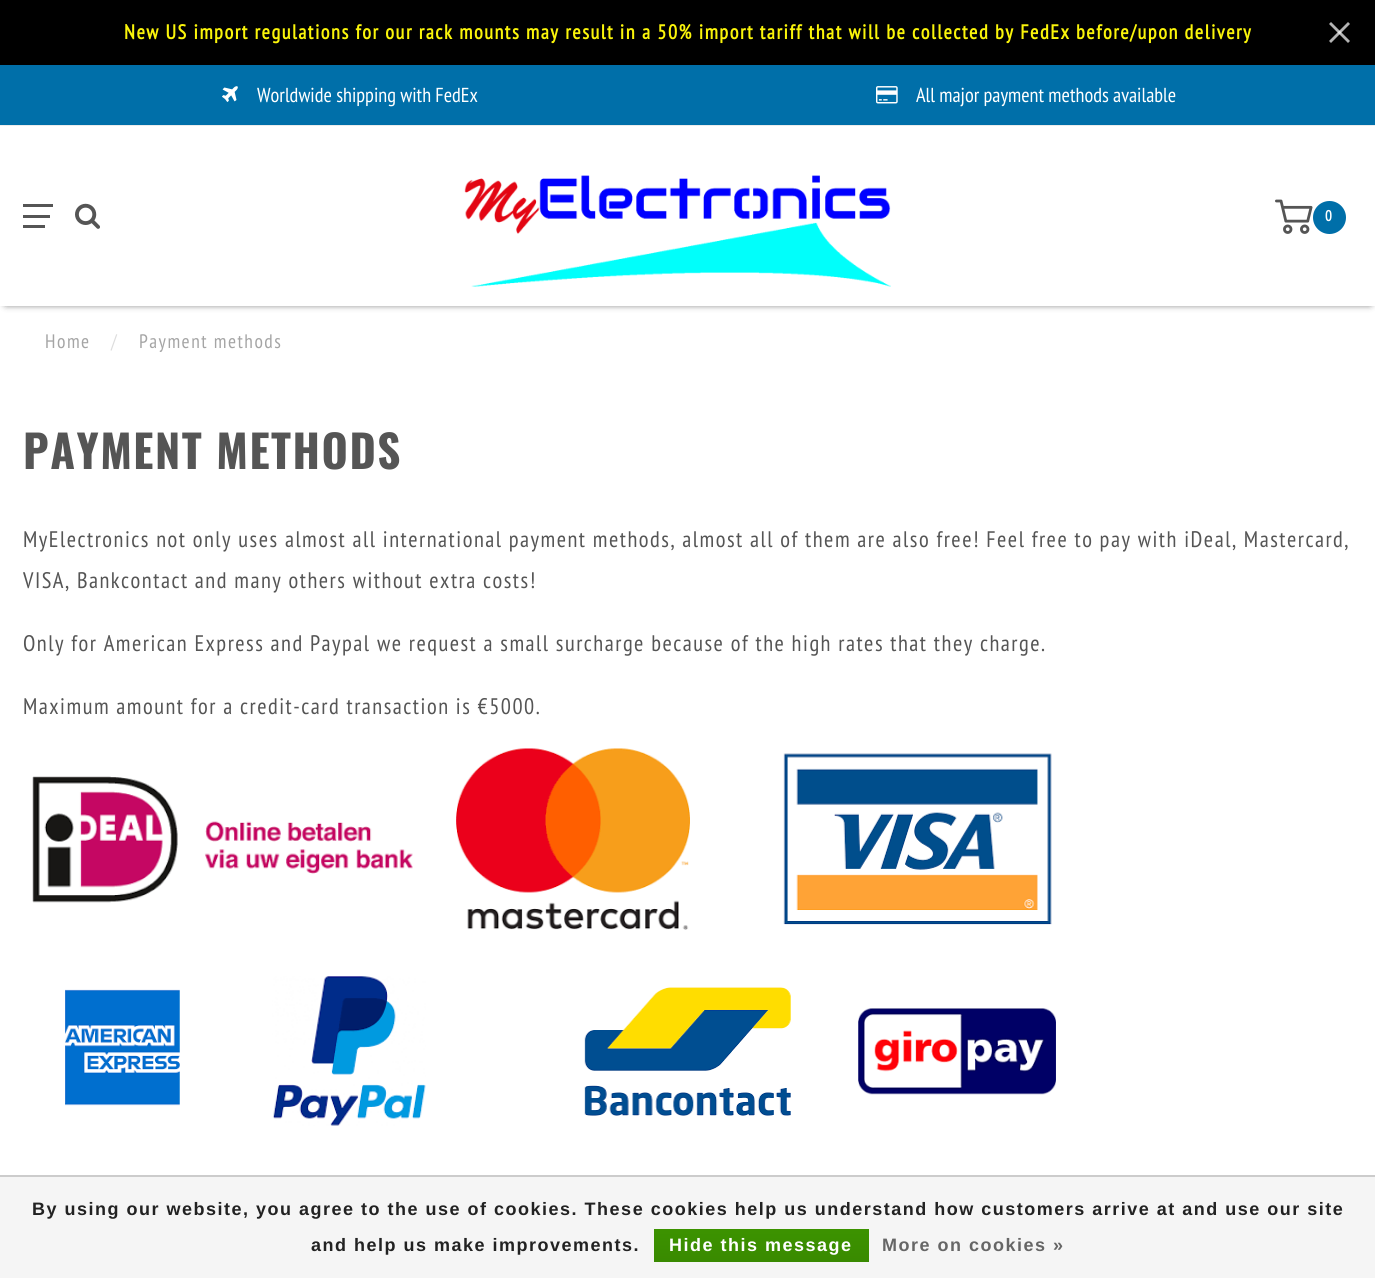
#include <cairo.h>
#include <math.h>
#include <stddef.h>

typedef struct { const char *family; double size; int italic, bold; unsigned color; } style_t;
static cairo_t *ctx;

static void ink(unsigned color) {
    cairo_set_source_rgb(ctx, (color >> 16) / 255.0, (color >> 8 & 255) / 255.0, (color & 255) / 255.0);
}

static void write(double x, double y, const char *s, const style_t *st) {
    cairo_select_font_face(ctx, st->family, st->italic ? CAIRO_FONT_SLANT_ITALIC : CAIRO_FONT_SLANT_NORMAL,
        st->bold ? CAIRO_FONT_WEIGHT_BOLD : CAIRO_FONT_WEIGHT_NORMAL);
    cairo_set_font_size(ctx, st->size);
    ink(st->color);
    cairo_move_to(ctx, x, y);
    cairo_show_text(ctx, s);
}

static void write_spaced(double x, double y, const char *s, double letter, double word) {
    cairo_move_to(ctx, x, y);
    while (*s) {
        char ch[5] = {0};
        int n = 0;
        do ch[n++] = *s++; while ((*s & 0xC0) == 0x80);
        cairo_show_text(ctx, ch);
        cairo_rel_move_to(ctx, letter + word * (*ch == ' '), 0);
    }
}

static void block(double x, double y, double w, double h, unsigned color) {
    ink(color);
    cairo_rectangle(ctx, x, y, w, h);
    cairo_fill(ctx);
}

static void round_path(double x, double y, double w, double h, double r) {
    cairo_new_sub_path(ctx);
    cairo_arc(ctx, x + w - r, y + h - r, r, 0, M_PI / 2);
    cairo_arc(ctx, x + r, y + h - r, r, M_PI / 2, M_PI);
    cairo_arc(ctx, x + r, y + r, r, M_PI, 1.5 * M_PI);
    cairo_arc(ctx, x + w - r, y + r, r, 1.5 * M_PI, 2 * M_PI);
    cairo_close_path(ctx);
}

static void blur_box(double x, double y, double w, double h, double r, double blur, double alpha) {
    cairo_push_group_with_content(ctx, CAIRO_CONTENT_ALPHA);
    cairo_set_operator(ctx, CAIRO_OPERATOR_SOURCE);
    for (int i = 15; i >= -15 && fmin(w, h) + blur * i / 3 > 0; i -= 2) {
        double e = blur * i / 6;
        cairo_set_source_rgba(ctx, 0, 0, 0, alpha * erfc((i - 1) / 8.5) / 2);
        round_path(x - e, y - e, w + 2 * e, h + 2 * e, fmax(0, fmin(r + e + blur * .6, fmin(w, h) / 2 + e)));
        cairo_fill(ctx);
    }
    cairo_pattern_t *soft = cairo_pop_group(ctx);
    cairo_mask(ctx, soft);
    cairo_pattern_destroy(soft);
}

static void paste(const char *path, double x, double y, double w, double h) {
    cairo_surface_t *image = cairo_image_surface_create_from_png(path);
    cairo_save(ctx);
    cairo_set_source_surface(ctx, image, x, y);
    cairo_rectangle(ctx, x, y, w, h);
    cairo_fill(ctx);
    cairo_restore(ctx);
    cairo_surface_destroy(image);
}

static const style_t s1 = {"PT Sans Narrow", 20.25, 0, 0, 0xffffff};

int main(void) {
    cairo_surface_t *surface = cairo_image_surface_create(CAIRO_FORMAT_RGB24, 1375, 1278);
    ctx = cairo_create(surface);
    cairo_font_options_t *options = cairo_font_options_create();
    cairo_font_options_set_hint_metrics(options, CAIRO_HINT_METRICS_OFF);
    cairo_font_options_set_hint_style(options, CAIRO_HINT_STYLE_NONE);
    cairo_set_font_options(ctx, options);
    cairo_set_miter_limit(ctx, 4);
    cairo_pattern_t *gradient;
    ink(0xffffff);
    cairo_paint(ctx);
    block(0, 0, 1375, 65, 0x000000);
    cairo_select_font_face(ctx, "PT Sans Narrow", CAIRO_FONT_SLANT_NORMAL, CAIRO_FONT_WEIGHT_BOLD);
    cairo_set_font_size(ctx, 20.25);
    ink(0xfaf40a);
    write_spaced(124, 39, "New US import regulations for our rack mounts may result in a 50% import tariff that will be collected by FedEx before/upon delivery", 1.5, 0);
    ink(0xb3b3b3);
    cairo_new_path(ctx);
    cairo_move_to(ctx, 1331, 22);
    cairo_line_to(ctx, 1350, 41);
    cairo_line_to(ctx, 1348, 43);
    cairo_line_to(ctx, 1329, 24);
    cairo_close_path(ctx);
    cairo_fill(ctx);
    cairo_set_source_rgba(ctx, 1, 1, 1, 0.7);
    cairo_new_path(ctx);
    cairo_move_to(ctx, 1329, 41);
    cairo_line_to(ctx, 1348, 22);
    cairo_line_to(ctx, 1350, 24);
    cairo_line_to(ctx, 1331, 43);
    cairo_close_path(ctx);
    cairo_fill(ctx);
    block(0, 65, 1375, 60, 0x006fa9);
    block(0, 125, 1375, 1, 0xeeeeee);
    paste("pic1.png", 222, 86, 16, 16);
    write(257, 102, "Worldwide shipping with FedEx", &s1);
    paste("pic2.png", 876, 86, 22, 18);
    write(916, 102, "All major payment methods available", &s1);
    ink(0x000000);
    blur_box(6, 135, 1364, 168, 0, 4, 1);
    block(0, 126, 1375, 180, 0xffffff);
    block(23, 204, 30, 3, 0x555555);
    block(23, 215, 27, 3, 0x555555);
    block(23, 225, 22, 3, 0x555555);
    paste("pic3.png", 75, 203, 25, 26);
    paste("pic4.png", 464, 175, 427, 112);
    paste("pic5.png", 1275, 199, 38, 35);
    ink(0x006fa9);
    cairo_arc(ctx, 1329.5, 217.5, 16.5, 0, 2 * M_PI);
    cairo_fill(ctx);
    cairo_select_font_face(ctx, "PT Sans Narrow", CAIRO_FONT_SLANT_NORMAL, CAIRO_FONT_WEIGHT_BOLD);
    cairo_set_font_size(ctx, 15);
    ink(0xffffff);
    write_spaced(1325, 221, "0", 1.5, 0);
    cairo_select_font_face(ctx, "PT Sans Narrow", CAIRO_FONT_SLANT_NORMAL, CAIRO_FONT_WEIGHT_NORMAL);
    cairo_set_font_size(ctx, 19.5);
    ink(0xa5a5a5);
    write_spaced(45, 348, "Home", 1.5, 0);
    ink(0xdddddd);
    write_spaced(111, 348, "/", 1.5, 0);
    ink(0xa5a5a5);
    write_spaced(139, 348, "Payment methods", 1.5, 0);
    cairo_select_font_face(ctx, "Oswald", CAIRO_FONT_SLANT_NORMAL, CAIRO_FONT_WEIGHT_BOLD);
    cairo_set_font_size(ctx, 45);
    ink(0x555555);
    write_spaced(23, 469, "PAYMENT METHODS", 1.5, 0);
    cairo_select_font_face(ctx, "PT Sans Narrow", CAIRO_FONT_SLANT_NORMAL, CAIRO_FONT_WEIGHT_NORMAL);
    cairo_set_font_size(ctx, 22.5);
    write_spaced(23, 547, "MyElectronics not only uses almost all international payment methods, almost all of them are also free! Feel free to pay with iDeal, Mastercard,", 1.5, 0);
    write_spaced(23, 588, "VISA, Bankcontact and many others without extra costs!", 1.5, 0);
    write_spaced(23, 651, "Only for American Express and Paypal we request a small surcharge because of the high rates that they charge.", 1.5, 0);
    write_spaced(23, 714, "Maximum amount for a credit-card transaction is €5000.", 1.5, 0);
    paste("pic6.png", 32, 776, 381, 127);
    paste("pic7.png", 456, 748, 234, 182);
    paste("pic8.png", 783, 753, 269, 172);
    paste("pic9.png", 65, 989, 115, 117);
    paste("pic10.png", 272, 976, 154, 150);
    paste("pic11.png", 584, 987, 207, 129);
    paste("pic12.png", 858, 1008, 198, 87);
    block(0, 1177, 1375, 101, 0xf5f5f5);
    block(0, 1175, 1375, 2, 0xcccccc);
    cairo_select_font_face(ctx, "Liberation Sans", CAIRO_FONT_SLANT_NORMAL, CAIRO_FONT_WEIGHT_BOLD);
    cairo_set_font_size(ctx, 18);
    ink(0x222222);
    write_spaced(32, 1215, "By using our website, you agree to the use of cookies. These cookies help us understand how customers arrive at and use our site", 1.5, 0);
    write_spaced(311, 1251, "and help us make improvements.", 1.5, 0);
    gradient = cairo_pattern_create_linear(761, 1229, 761, 1262);
    cairo_pattern_add_color_stop_rgba(gradient, 0, 0.235, 0.576, 0, 1);
    cairo_pattern_add_color_stop_rgba(gradient, 1, 0.224, 0.541, 0, 1);
    cairo_set_source(ctx, gradient);
    cairo_pattern_destroy(gradient);
    cairo_rectangle(ctx, 654, 1229, 215, 33);
    cairo_fill(ctx);
    ink(0xffffff);
    write_spaced(669, 1251, "Hide this message", 1.5, 0);
    ink(0x666666);
    write_spaced(882, 1251, "More on cookies »", 1.5, 0);
    cairo_surface_write_to_png(surface, "screenshot.png");
    cairo_font_options_destroy(options);
    cairo_destroy(ctx);
    cairo_surface_destroy(surface);
    return 0;
}
